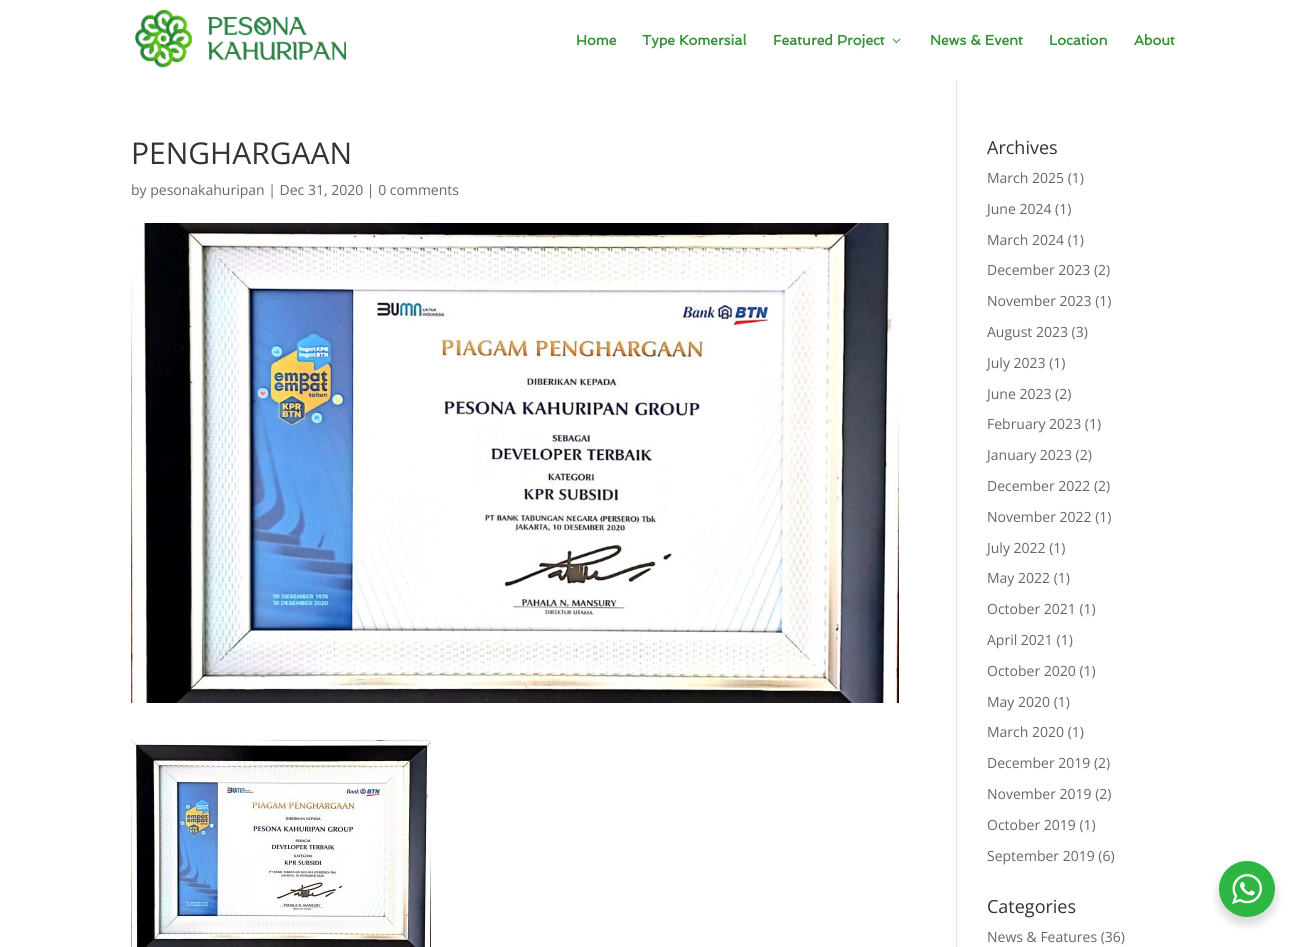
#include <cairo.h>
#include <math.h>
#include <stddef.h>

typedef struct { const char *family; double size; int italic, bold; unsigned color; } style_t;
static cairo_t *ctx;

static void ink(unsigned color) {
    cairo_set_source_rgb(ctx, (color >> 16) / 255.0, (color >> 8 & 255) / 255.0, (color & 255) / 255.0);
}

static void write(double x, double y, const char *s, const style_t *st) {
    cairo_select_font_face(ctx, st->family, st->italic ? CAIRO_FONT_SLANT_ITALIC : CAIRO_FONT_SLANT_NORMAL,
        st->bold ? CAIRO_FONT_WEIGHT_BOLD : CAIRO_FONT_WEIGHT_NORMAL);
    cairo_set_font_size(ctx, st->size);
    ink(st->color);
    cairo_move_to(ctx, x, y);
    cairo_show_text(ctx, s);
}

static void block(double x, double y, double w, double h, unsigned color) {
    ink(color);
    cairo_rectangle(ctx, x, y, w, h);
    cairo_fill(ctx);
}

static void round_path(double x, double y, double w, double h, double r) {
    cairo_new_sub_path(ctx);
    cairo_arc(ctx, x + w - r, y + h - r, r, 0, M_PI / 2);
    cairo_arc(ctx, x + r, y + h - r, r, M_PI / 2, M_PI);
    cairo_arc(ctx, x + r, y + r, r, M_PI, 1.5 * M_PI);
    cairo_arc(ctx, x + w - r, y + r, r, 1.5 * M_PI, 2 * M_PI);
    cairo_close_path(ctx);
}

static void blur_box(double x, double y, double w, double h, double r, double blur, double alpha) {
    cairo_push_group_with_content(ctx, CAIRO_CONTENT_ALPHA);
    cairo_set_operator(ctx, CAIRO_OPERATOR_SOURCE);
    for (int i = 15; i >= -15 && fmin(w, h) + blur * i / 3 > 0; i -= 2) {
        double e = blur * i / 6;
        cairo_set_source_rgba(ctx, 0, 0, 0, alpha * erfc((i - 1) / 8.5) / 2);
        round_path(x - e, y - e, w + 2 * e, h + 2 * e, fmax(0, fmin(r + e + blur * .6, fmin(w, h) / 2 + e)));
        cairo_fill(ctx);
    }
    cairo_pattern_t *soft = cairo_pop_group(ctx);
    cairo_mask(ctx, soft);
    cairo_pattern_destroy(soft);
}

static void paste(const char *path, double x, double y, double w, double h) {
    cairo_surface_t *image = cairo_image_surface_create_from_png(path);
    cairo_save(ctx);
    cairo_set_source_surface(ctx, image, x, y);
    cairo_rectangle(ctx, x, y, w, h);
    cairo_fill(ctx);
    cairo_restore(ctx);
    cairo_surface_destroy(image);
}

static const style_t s1 = {"Spinnaker", 14, 0, 1, 0x339433};
static const style_t s2 = {"Open Sans", 30, 0, 0, 0x333333};
static const style_t s3 = {"Open Sans", 14, 0, 0, 0x666666};
static const style_t s4 = {"Open Sans", 18, 0, 0, 0x333333};

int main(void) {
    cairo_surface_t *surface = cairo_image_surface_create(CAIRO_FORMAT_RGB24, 1305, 947);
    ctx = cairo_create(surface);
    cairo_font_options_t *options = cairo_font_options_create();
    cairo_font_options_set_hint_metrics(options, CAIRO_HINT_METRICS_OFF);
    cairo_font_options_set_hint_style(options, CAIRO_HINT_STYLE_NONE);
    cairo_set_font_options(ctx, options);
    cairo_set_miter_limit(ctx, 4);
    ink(0xffffff);
    cairo_paint(ctx);
    paste("pic1.png", 135, 10, 211, 58);
    write(576, 45, "Home", &s1);
    write(642, 45, "Type Komersial", &s1);
    write(773, 45, "Featured Project", &s1);
    paste("pic2.png", 892, 38, 9, 5);
    write(930, 45, "News & Event", &s1);
    write(1049, 45, "Location", &s1);
    write(1134, 45, "About", &s1);
    block(956, 80, 1, 867, 0xe2e2e2);
    write(131, 164, "PENGHARGAAN", &s2);
    write(131, 195, "by pesonakahuripan | Dec 31, 2020 | 0 comments", &s3);
    paste("pic3.png", 131, 223, 768, 480);
    paste("pic4.png", 131, 740, 300, 207);
    write(987, 154, "Archives", &s4);
    write(987, 183, "March 2025 (1)", &s3);
    write(987, 214, "June 2024 (1)", &s3);
    write(987, 245, "March 2024 (1)", &s3);
    write(987, 275, "December 2023 (2)", &s3);
    write(987, 306, "November 2023 (1)", &s3);
    write(987, 337, "August 2023 (3)", &s3);
    write(987, 368, "July 2023 (1)", &s3);
    write(987, 399, "June 2023 (2)", &s3);
    write(987, 429, "February 2023 (1)", &s3);
    write(987, 460, "January 2023 (2)", &s3);
    write(987, 491, "December 2022 (2)", &s3);
    write(987, 522, "November 2022 (1)", &s3);
    write(987, 553, "July 2022 (1)", &s3);
    write(987, 583, "May 2022 (1)", &s3);
    write(987, 614, "October 2021 (1)", &s3);
    write(987, 645, "April 2021 (1)", &s3);
    write(987, 676, "October 2020 (1)", &s3);
    write(987, 707, "May 2020 (1)", &s3);
    write(987, 737, "March 2020 (1)", &s3);
    write(987, 768, "December 2019 (2)", &s3);
    write(987, 799, "November 2019 (2)", &s3);
    write(987, 830, "October 2019 (1)", &s3);
    write(987, 861, "September 2019 (6)", &s3);
    write(987, 913, "Categories", &s4);
    write(987, 942, "News & Features (36)", &s3);
    ink(0x000000);
    blur_box(1217, 865, 60, 60, 30, 4, 0.14);
    ink(0x2db742);
    cairo_arc(ctx, 1247, 889, 28, 0, 2 * M_PI);
    cairo_fill(ctx);
    paste("pic5.png", 1232, 874, 30, 30);
    cairo_surface_write_to_png(surface, "screenshot.png");
    cairo_font_options_destroy(options);
    cairo_destroy(ctx);
    cairo_surface_destroy(surface);
    return 0;
}
